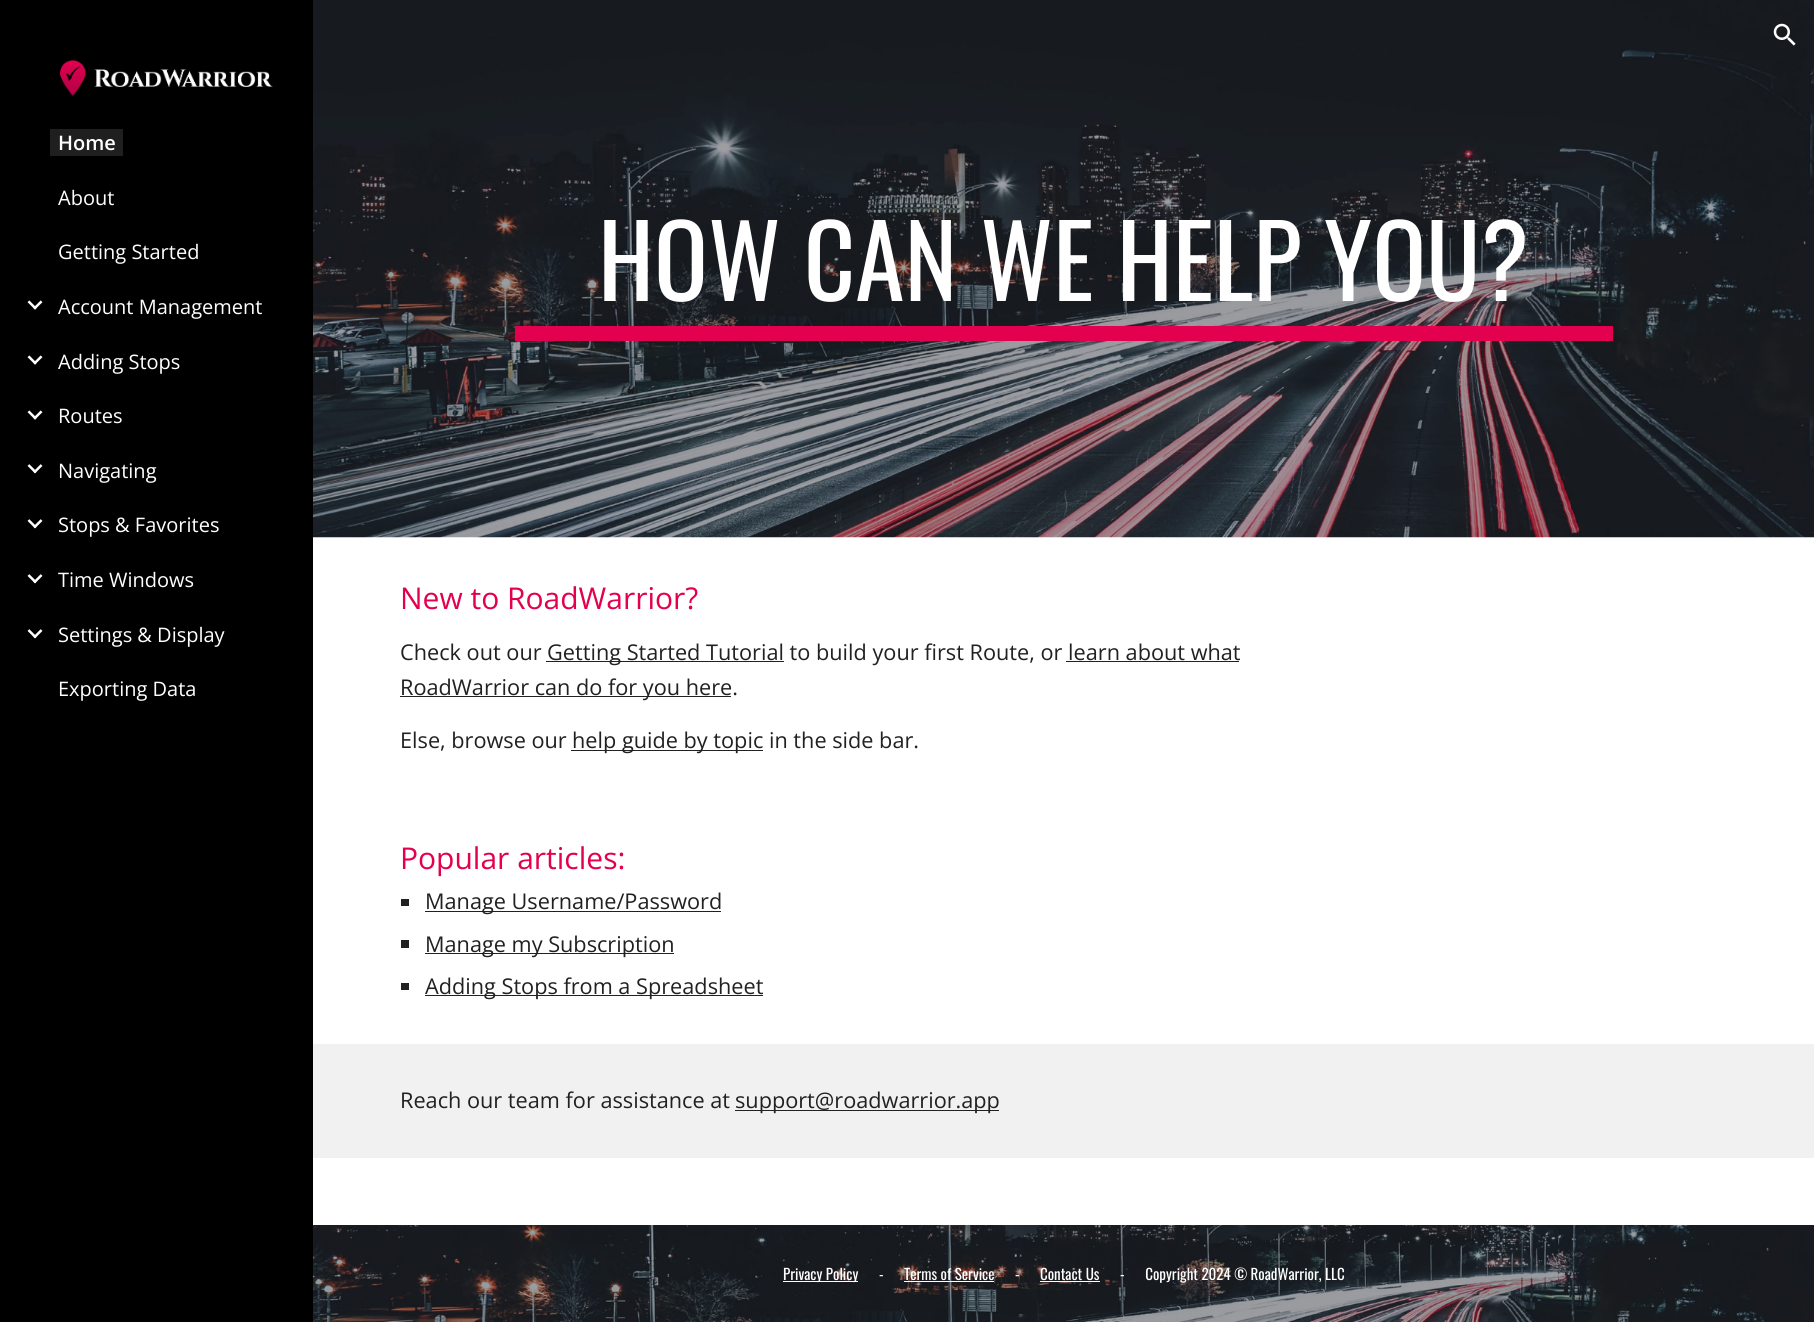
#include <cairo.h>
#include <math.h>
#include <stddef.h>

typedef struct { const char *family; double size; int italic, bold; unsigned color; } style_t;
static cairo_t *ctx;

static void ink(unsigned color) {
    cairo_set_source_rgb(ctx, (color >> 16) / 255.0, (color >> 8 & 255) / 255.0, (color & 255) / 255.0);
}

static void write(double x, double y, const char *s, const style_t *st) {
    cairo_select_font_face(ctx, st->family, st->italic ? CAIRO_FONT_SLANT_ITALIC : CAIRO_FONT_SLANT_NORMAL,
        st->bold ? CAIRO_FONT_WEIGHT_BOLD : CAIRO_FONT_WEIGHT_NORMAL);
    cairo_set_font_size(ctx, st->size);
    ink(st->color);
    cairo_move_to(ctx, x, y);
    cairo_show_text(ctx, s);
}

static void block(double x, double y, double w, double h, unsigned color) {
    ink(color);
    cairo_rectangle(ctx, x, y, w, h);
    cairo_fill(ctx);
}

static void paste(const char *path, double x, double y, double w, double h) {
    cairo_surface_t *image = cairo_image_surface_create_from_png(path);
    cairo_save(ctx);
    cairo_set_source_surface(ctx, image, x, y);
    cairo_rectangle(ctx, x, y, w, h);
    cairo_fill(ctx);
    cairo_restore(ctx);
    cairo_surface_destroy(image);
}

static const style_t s1 = {"Open Sans SemiBold", 20, 0, 0, 0xffffff};
static const style_t s2 = {"Open Sans", 20, 0, 0, 0xffffff};
static const style_t s3 = {"Oswald", 100, 0, 0, 0xffffff};
static const style_t s4 = {"Open Sans", 30, 0, 0, 0xe2004f};
static const style_t s5 = {"Open Sans", 21.7, 0, 0, 0x212121};
static const style_t s6 = {"Oswald", 15, 0, 0, 0xffffff};

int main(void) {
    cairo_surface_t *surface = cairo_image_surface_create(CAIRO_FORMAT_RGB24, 1814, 1322);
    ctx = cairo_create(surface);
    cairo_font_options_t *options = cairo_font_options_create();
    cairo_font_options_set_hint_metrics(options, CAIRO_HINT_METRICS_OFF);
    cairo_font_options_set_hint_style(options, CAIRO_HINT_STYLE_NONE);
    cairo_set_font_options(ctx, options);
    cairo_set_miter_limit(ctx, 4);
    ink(0xffffff);
    cairo_paint(ctx);
    paste("pic5.png", 313, 0, 1501, 538);
    paste("pic1.png", 1773, 23, 23, 23);
    block(0, 0, 313, 1322, 0x000000);
    paste("pic2.png", 60, 60, 213, 36);
    block(50, 129, 73, 27, 0x1f1f1f);
    write(58, 150, "Home", &s1);
    write(58, 205, "About", &s2);
    write(58, 259, "Getting Started", &s2);
    paste("pic3.png", 27, 300, 16, 10);
    write(58, 314, "Account Management", &s2);
    paste("pic3.png", 27, 355, 16, 10);
    write(58, 369, "Adding Stops", &s2);
    paste("pic3.png", 27, 410, 16, 10);
    write(58, 423, "Routes", &s2);
    paste("pic4.png", 27, 464, 16, 10);
    write(58, 478, "Navigating", &s2);
    paste("pic4.png", 27, 519, 16, 10);
    write(58, 532, "Stops & Favorites", &s2);
    paste("pic4.png", 27, 574, 16, 10);
    write(58, 587, "Time Windows", &s2);
    paste("pic4.png", 27, 629, 16, 10);
    write(58, 642, "Settings & Display", &s2);
    write(58, 696, "Exporting Data", &s2);
    write(598, 301, "HOW CAN WE HELP YOU?", &s3);
    block(515, 326, 1098, 15, 0xe2004f);
    write(400, 609, "New to RoadWarrior?", &s4);
    write(400, 660, "Check out our", &s5);
    block(546, 661, 238, 1, 0x212121);
    write(547, 660, "Getting Started Tutorial to build your first Route, or learn about what", &s5);
    block(400, 696, 331, 1, 0x212121);
    write(400, 695, "RoadWarrior can do for you here.", &s5);
    block(1066, 661, 173, 1, 0x212121);
    write(400, 748, "Else, browse our", &s5);
    block(571, 750, 192, 1, 0x212121);
    write(572, 748, "help guide by topic in the side bar.", &s5);
    write(400, 869, "Popular articles:", &s4);
    block(401, 899, 8, 7, 0x212121);
    block(425, 911, 296, 1, 0x212121);
    write(425, 909, "Manage Username/Password", &s5);
    block(401, 940, 8, 8, 0x212121);
    block(425, 953, 249, 1, 0x212121);
    write(425, 952, "Manage my Subscription", &s5);
    block(401, 983, 8, 7, 0x212121);
    block(425, 995, 338, 1, 0x212121);
    write(425, 994, "Adding Stops from a Spreadsheet", &s5);
    block(313, 1044, 1501, 114, 0xf1f1f1);
    write(400, 1108, "Reach our team for assistance at", &s5);
    block(735, 1110, 264, 1, 0x212121);
    write(735, 1108, "support@roadwarrior.app", &s5);
    paste("pic6.png", 313, 1225, 1501, 97);
    block(783, 1281, 75, 1, 0xffffff);
    write(783, 1280, "Privacy Policy", &s6);
    write(879, 1280, "-", &s6);
    write(904, 1280, "Terms of Service", &s6);
    block(904, 1281, 90, 1, 0xffffff);
    write(1015, 1280, "-", &s6);
    write(1040, 1280, "Contact Us", &s6);
    block(1040, 1281, 60, 1, 0xffffff);
    write(1120, 1280, "-      Copyright 2024 © RoadWarrior, LLC", &s6);
    cairo_surface_write_to_png(surface, "screenshot.png");
    cairo_font_options_destroy(options);
    cairo_destroy(ctx);
    cairo_surface_destroy(surface);
    return 0;
}
